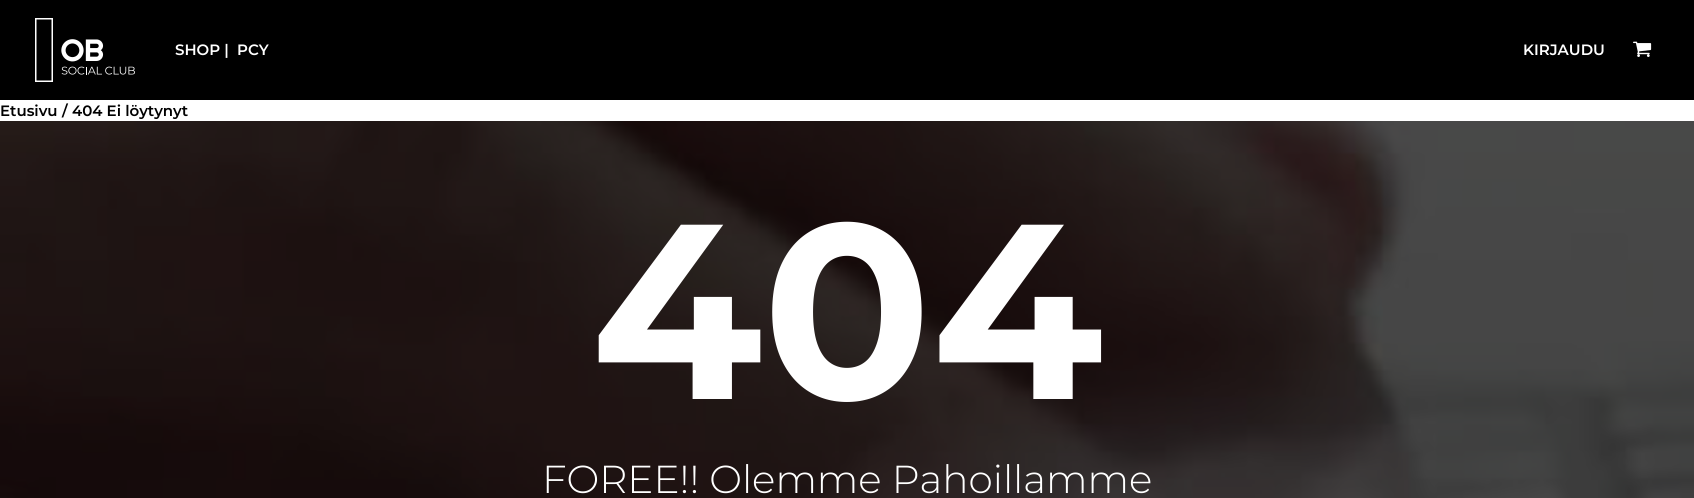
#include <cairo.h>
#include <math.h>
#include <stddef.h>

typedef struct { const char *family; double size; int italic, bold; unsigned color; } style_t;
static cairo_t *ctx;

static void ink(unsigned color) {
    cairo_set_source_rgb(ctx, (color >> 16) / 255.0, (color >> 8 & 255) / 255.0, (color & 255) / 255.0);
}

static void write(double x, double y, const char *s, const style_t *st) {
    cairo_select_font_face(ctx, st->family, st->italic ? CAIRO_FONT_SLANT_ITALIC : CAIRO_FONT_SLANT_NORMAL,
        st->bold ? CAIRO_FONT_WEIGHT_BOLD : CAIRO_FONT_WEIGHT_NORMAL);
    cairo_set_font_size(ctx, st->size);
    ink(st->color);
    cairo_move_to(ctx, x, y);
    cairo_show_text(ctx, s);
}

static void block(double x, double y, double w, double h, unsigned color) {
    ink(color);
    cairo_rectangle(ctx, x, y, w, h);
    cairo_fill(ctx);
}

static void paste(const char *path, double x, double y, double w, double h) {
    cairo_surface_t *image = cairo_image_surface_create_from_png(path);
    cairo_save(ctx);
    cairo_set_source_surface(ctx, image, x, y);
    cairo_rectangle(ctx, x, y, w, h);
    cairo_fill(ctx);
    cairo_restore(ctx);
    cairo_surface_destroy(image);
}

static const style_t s1 = {"Montserrat SemiBold", 15, 0, 0, 0xffffff};
static const style_t s2 = {"Montserrat SemiBold", 15, 0, 0, 0x000000};
static const style_t s3 = {"Montserrat", 249, 0, 1, 0xffffff};
static const style_t s4 = {"Montserrat Light", 39, 0, 0, 0xffffff};

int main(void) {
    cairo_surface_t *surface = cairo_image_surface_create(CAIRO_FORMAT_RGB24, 1694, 498);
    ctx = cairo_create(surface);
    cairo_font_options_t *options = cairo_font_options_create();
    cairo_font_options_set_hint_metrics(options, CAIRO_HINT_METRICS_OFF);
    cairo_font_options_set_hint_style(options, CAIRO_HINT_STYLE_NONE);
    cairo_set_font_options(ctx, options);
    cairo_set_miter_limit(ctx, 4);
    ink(0xffffff);
    cairo_paint(ctx);
    block(0, 0, 1694, 100, 0x000000);
    paste("pic1.png", 35, 18, 100, 64);
    write(175, 55, "SHOP |", &s1);
    write(237, 55, "PCY", &s1);
    write(1523, 55, "KIRJAUDU", &s1);
    paste("pic2.png", 1633, 41, 19, 16);
    write(0, 116, "Etusivu", &s2);
    write(62, 116, "/", &s2);
    write(72, 116, "404 Ei löytynyt", &s2);
    paste("pic3.png", 0, 121, 1694, 377);
    write(591, 399, "404", &s3);
    write(542, 493, "FOREE!! Olemme Pahoillamme", &s4);
    cairo_surface_write_to_png(surface, "screenshot.png");
    cairo_font_options_destroy(options);
    cairo_destroy(ctx);
    cairo_surface_destroy(surface);
    return 0;
}
